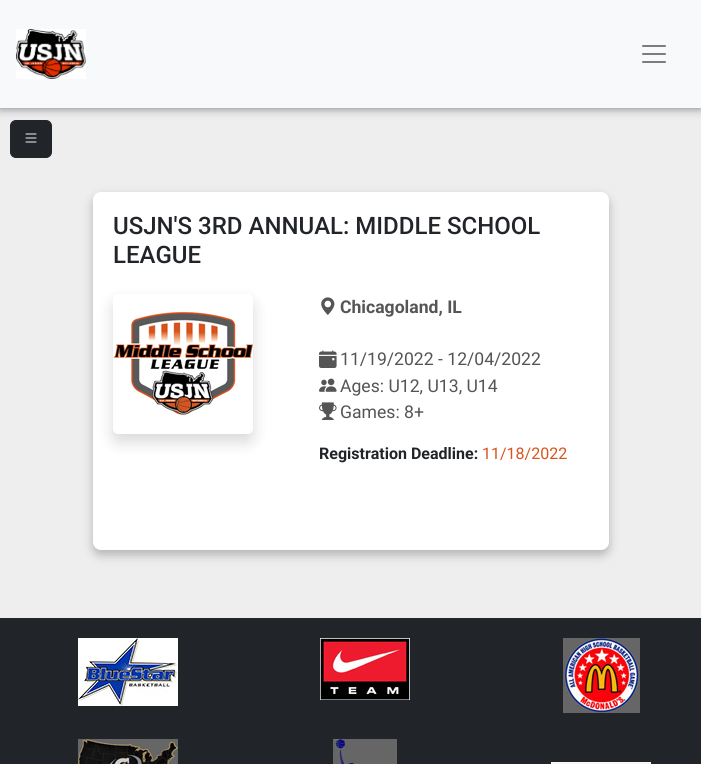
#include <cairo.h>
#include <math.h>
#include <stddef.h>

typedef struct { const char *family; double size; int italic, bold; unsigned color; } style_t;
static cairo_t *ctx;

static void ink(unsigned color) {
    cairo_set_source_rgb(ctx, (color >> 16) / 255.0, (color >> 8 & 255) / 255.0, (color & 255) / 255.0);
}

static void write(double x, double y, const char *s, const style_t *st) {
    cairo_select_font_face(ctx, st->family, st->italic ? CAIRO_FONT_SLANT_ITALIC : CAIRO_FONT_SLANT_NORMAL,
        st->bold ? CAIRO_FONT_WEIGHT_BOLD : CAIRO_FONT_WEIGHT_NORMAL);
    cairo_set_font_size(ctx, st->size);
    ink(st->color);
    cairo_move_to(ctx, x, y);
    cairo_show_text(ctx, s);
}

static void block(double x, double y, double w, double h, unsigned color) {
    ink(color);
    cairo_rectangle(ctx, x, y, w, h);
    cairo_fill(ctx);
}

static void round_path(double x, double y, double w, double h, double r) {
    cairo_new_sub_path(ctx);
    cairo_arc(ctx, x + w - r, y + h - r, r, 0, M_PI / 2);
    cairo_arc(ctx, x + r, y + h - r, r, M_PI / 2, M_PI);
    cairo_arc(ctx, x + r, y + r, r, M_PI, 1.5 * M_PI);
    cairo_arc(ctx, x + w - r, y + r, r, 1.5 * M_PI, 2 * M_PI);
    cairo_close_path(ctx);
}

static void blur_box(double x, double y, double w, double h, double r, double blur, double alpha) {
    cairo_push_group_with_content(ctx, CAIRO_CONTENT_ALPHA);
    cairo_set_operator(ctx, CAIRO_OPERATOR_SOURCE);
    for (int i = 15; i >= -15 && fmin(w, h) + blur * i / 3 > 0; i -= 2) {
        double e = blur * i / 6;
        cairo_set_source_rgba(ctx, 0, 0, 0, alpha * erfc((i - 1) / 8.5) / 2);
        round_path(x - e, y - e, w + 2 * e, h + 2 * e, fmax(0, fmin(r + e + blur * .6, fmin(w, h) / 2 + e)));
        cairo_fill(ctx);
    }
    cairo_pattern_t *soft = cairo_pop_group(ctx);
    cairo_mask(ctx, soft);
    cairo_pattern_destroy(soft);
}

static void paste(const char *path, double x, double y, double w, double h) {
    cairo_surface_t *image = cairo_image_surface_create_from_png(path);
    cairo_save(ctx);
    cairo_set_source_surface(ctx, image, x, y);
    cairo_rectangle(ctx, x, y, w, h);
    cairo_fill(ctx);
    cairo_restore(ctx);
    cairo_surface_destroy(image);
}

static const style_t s1 = {"Roboto Medium", 24, 0, 0, 0x212529};
static const style_t s2 = {"Roboto", 17.6, 0, 1, 0x555555};
static const style_t s3 = {"Roboto", 17.6, 0, 0, 0x555555};
static const style_t s4 = {"Roboto", 16, 0, 1, 0x212529};
static const style_t s5 = {"Roboto", 16, 0, 0, 0xd9541e};

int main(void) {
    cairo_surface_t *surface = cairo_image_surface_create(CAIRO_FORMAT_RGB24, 701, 764);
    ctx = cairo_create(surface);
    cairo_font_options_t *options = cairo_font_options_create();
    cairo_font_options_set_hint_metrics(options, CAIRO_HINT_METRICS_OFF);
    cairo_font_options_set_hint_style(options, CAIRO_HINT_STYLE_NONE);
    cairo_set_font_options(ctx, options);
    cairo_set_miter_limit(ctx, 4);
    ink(0xeeeeee);
    cairo_paint(ctx);
    ink(0x212529);
    round_path(10.5, 120.5, 41, 37, 5.5);
    cairo_fill_preserve(ctx);
    cairo_set_line_width(ctx, 1);
    cairo_stroke(ctx);
    ink(0x000000);
    blur_box(0, 0, 701, 108, 0, 5, 0.5);
    block(0, 0, 701, 108, 0xf8f9fa);
    paste("pic1.png", 16, 29, 70, 50);
    paste("pic2.png", 642, 45, 24, 18);
    paste("pic3.png", 25, 133, 12, 10);
    ink(0x000000);
    blur_box(93, 197, 516, 358, 8, 5, 0.25);
    ink(0xffffff);
    round_path(93, 192, 516, 358, 8);
    cairo_fill(ctx);
    write(113, 234, "USJN'S 3RD ANNUAL: MIDDLE SCHOOL", &s1);
    write(113, 263, "LEAGUE", &s1);
    cairo_save(ctx);
    cairo_set_fill_rule(ctx, CAIRO_FILL_RULE_EVEN_ODD);
    cairo_new_path(ctx);
    cairo_move_to(ctx, 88, 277);
    cairo_line_to(ctx, 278, 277);
    cairo_line_to(ctx, 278, 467);
    cairo_line_to(ctx, 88, 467);
    cairo_close_path(ctx);
    cairo_move_to(ctx, 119, 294);
    cairo_line_to(ctx, 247, 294);
    cairo_curve_to(ctx, 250.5, 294, 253, 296.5, 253, 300);
    cairo_line_to(ctx, 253, 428);
    cairo_curve_to(ctx, 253, 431.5, 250.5, 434, 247, 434);
    cairo_line_to(ctx, 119, 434);
    cairo_curve_to(ctx, 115.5, 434, 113, 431.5, 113, 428);
    cairo_line_to(ctx, 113, 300);
    cairo_curve_to(ctx, 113, 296.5, 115.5, 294, 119, 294);
    cairo_close_path(ctx);
    cairo_clip(ctx);
    ink(0x000000);
    blur_box(113, 302, 140, 140, 6, 8, 0.15);
    cairo_restore(ctx);
    paste("pic4.png", 113, 311, 140, 123);
    paste("pic5.png", 321, 297, 14, 18);
    write(340, 313, "Chicagoland, IL", &s2);
    paste("pic6.png", 319, 350, 18, 18);
    write(340, 365, "11/19/2022 - 12/04/2022", &s3);
    paste("pic7.png", 319, 378, 18, 14);
    write(340, 392, "Ages: U12, U13, U14", &s3);
    paste("pic8.png", 319, 402, 18, 18);
    write(340, 418, "Games: 8+", &s3);
    write(319, 459, "Registration Deadline:", &s4);
    write(482, 459, "11/18/2022", &s5);
    block(0, 618, 701, 146, 0x212529);
    paste("pic9.png", 78, 638, 100, 68);
    paste("pic10.png", 320, 638, 90, 62);
    paste("pic11.png", 563, 638, 77, 75);
    paste("pic12.png", 78, 739, 100, 25);
    paste("pic13.png", 333, 739, 64, 25);
    paste("pic14.png", 551, 762, 100, 2);
    cairo_surface_write_to_png(surface, "screenshot.png");
    cairo_font_options_destroy(options);
    cairo_destroy(ctx);
    cairo_surface_destroy(surface);
    return 0;
}
